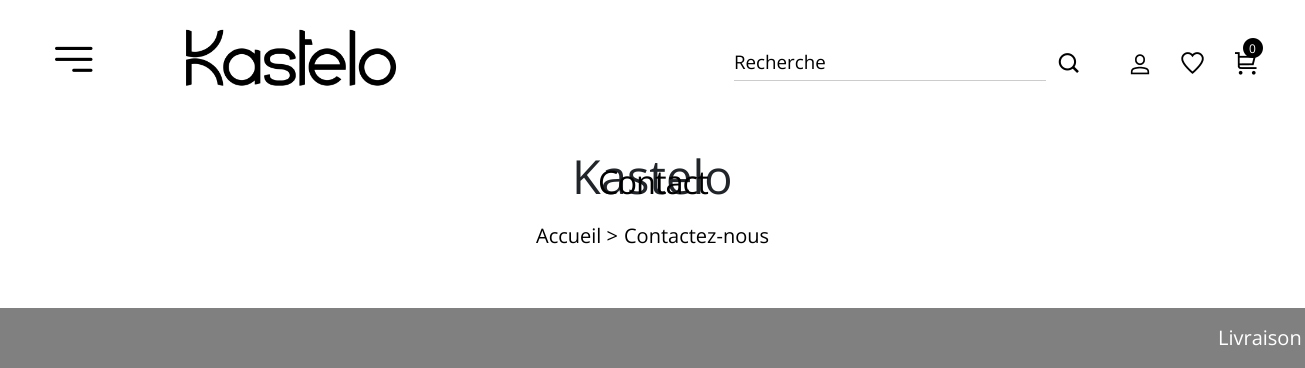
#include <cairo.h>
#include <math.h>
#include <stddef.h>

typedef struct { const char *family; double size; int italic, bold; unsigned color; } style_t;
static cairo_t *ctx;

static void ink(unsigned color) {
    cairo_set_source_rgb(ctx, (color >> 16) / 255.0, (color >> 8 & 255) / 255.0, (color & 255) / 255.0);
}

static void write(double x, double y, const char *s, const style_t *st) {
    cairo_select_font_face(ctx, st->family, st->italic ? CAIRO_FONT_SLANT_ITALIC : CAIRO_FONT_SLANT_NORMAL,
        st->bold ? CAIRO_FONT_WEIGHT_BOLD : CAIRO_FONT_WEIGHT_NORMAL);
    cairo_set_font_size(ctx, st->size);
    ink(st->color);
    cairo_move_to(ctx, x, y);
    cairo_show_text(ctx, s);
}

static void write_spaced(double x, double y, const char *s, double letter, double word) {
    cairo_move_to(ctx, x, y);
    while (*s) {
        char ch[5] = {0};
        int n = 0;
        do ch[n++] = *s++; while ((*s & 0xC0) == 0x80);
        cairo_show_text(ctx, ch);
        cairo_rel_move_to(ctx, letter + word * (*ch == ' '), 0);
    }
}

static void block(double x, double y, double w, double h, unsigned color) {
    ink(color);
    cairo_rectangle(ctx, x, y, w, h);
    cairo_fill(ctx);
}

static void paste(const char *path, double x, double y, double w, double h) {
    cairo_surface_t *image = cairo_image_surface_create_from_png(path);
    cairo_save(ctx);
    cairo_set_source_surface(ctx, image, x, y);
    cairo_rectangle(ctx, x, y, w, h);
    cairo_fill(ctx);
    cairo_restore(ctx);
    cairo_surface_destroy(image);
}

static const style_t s1 = {"Open Sans", 12, 0, 0, 0xffffff};
static const style_t s2 = {"Open Sans", 18.75, 0, 0, 0x000000};
static const style_t s3 = {"Open Sans", 47, 0, 0, 0x212529};
static const style_t s4 = {"Open Sans", 20, 0, 0, 0x000000};
static const style_t s5 = {"Open Sans", 20, 0, 0, 0xffffff};

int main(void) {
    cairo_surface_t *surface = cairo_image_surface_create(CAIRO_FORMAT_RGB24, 1305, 368);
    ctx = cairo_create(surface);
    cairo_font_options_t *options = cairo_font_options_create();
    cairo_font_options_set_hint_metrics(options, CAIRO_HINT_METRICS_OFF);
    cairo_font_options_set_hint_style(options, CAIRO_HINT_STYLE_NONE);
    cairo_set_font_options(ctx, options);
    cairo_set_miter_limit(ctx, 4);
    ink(0xffffff);
    cairo_paint(ctx);
    block(0, 308, 1305, 60, 0x808080);
    paste("pic1.png", 55, 46, 38, 26);
    paste("pic2.png", 186, 29, 211, 57);
    paste("pic3.png", 1235, 52, 22, 23);
    ink(0x000000);
    cairo_arc(ctx, 1253, 48, 10, 0, 2 * M_PI);
    cairo_fill(ctx);
    write(1249, 53, "0", &s1);
    block(734, 80, 312, 1, 0xcccccc);
    write(734, 69, "Recherche", &s2);
    paste("pic4.png", 1058, 53, 21, 20);
    paste("pic5.png", 1130, 54, 20, 21);
    paste("pic6.png", 1181, 52, 23, 22);
    write(572, 194, "Kastelo", &s3);
    cairo_set_font_size(ctx, 32.5);
    ink(0x000000);
    write_spaced(598, 194, "Contact", -1, 0);
    write(536, 243, "Accueil >", &s4);
    write(624, 243, "Contactez-nous", &s4);
    write(1218, 345, "Livraison", &s5);
    cairo_surface_write_to_png(surface, "screenshot.png");
    cairo_font_options_destroy(options);
    cairo_destroy(ctx);
    cairo_surface_destroy(surface);
    return 0;
}
